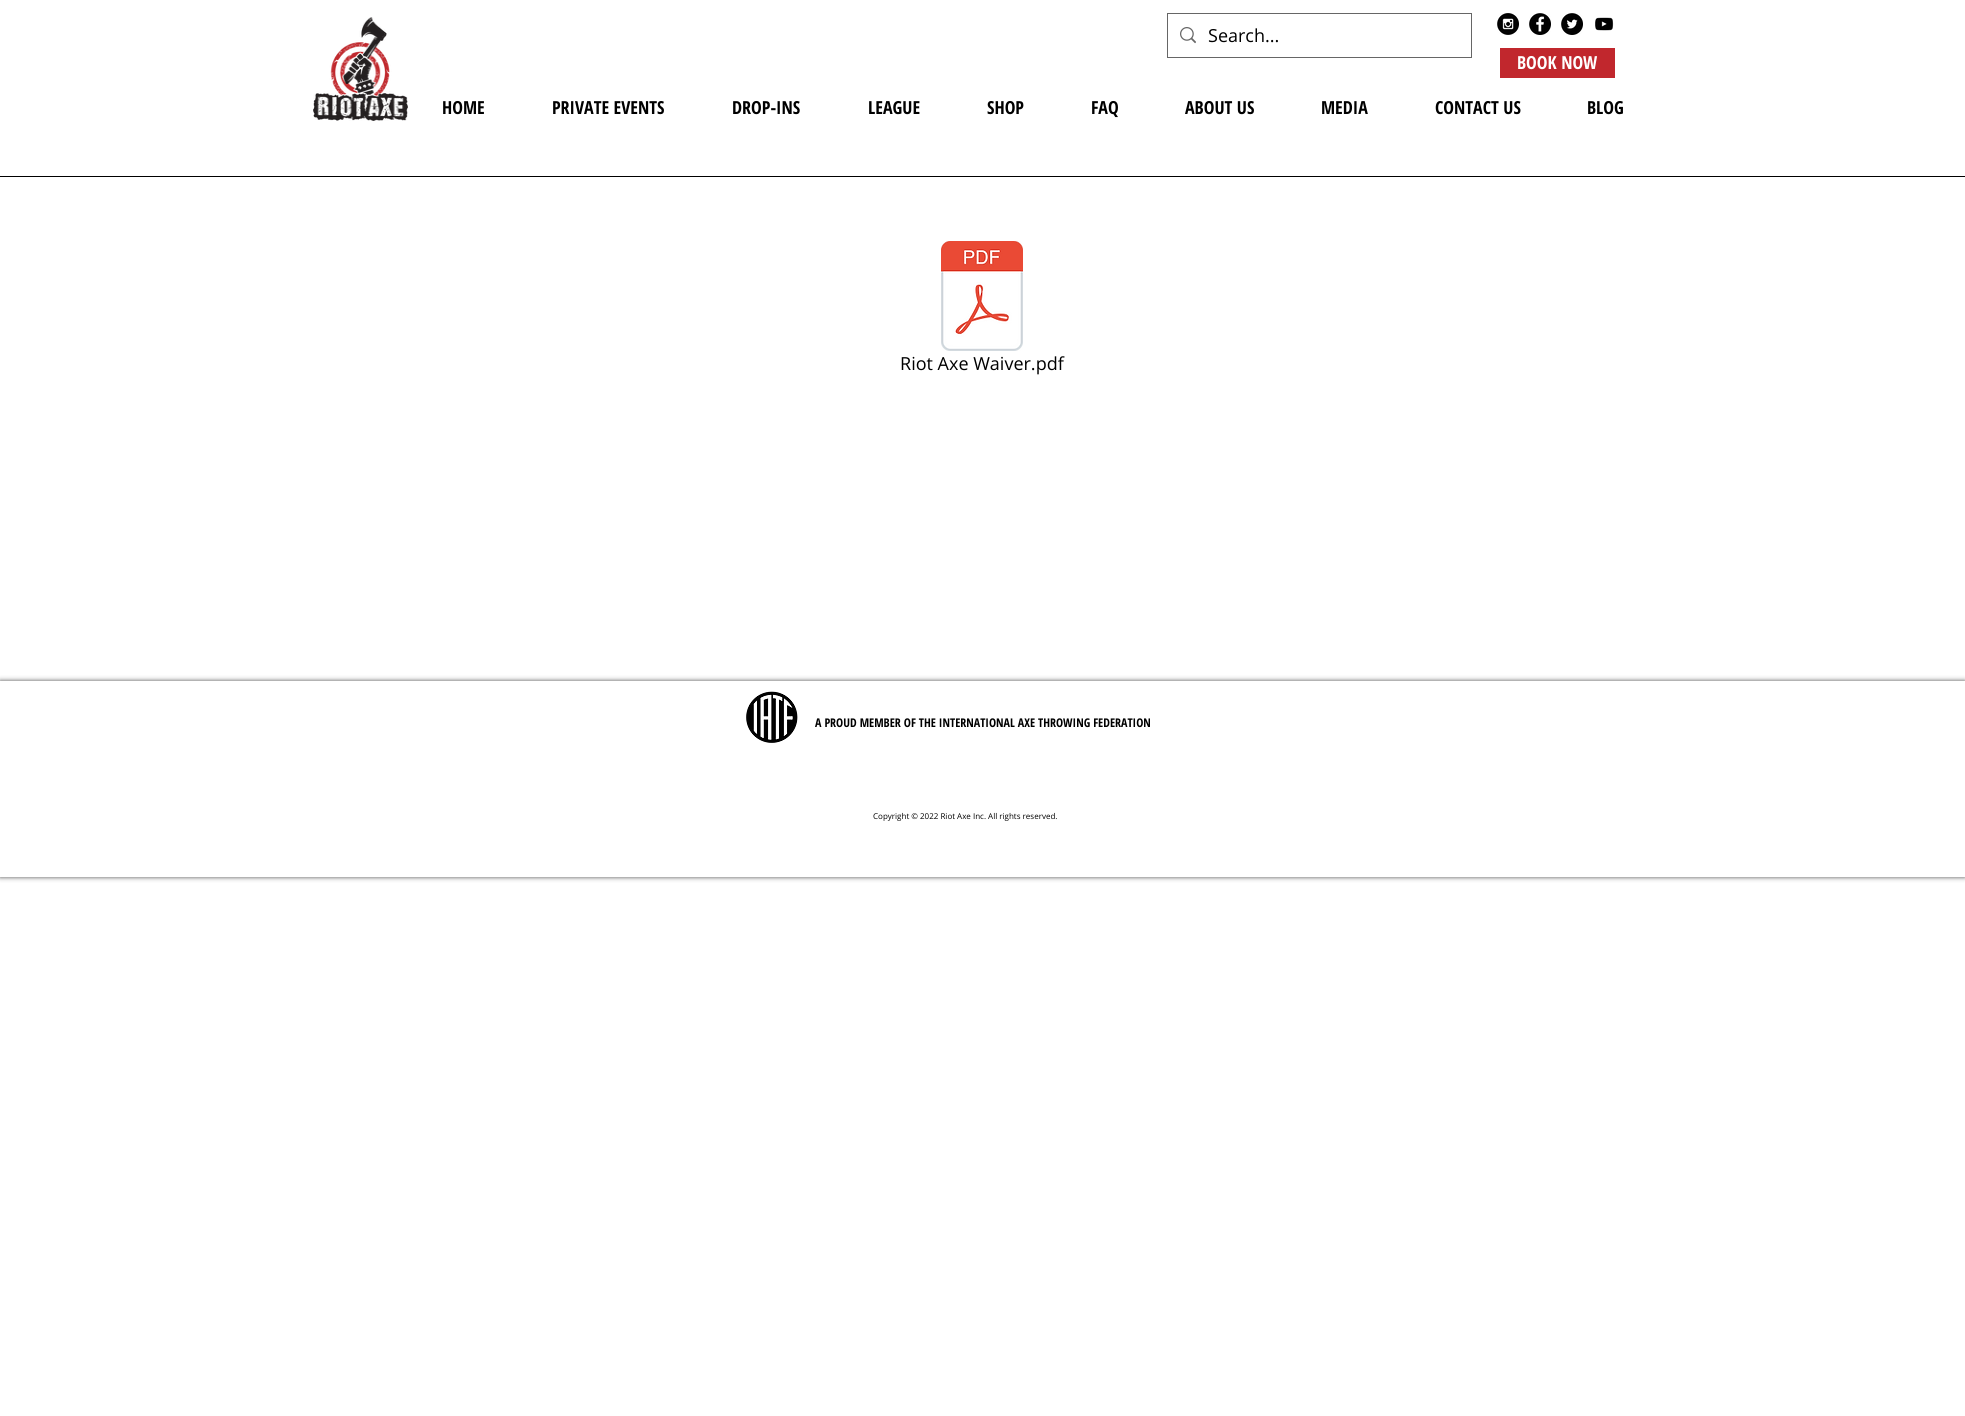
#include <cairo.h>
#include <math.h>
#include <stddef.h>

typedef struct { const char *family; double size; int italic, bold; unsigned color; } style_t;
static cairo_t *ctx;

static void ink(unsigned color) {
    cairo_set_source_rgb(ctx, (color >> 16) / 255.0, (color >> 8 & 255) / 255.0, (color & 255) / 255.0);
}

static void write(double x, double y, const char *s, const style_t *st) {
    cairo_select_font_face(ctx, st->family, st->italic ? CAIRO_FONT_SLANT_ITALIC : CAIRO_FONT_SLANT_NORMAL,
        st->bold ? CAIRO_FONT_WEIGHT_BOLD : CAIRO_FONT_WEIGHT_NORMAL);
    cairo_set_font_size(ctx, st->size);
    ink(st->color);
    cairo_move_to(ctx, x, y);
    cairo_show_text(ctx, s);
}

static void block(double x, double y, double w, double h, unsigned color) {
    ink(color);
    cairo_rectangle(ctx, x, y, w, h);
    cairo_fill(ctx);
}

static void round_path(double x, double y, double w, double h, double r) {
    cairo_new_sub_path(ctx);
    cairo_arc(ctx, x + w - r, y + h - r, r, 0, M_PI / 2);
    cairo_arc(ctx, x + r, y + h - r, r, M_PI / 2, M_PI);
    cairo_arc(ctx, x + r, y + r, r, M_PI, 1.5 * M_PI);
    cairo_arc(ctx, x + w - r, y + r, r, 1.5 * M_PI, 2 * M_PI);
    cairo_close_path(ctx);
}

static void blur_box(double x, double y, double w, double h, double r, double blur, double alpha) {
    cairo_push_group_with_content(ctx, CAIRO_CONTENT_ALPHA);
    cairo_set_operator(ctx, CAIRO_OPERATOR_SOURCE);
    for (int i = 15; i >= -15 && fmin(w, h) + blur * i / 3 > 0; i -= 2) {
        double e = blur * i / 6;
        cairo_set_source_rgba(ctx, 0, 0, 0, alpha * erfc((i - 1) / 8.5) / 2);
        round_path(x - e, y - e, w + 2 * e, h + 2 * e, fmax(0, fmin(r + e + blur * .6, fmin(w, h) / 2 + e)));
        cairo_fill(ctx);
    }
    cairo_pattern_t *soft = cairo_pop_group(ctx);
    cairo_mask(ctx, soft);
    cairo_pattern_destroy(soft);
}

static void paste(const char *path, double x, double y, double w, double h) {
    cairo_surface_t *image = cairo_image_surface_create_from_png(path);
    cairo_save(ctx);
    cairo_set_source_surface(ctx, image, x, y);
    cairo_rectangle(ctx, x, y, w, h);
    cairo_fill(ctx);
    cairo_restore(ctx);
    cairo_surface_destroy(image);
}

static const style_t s1 = {"Open Sans", 18, 0, 0, 0x000000};
static const style_t s2 = {"Open Sans Condensed", 18, 0, 1, 0xffffff};
static const style_t s3 = {"Open Sans Condensed", 18, 0, 1, 0x000000};
static const style_t s4 = {"Open Sans Condensed", 12, 0, 1, 0x000000};
static const style_t s5 = {"Open Sans", 8, 0, 0, 0x000000};

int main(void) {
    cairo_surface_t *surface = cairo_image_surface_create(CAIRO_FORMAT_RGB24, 1965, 1416);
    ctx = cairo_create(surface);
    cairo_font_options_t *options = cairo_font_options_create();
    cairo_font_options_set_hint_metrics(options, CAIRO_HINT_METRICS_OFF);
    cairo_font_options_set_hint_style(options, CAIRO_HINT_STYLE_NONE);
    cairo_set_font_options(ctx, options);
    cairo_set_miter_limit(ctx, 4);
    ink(0xffffff);
    cairo_paint(ctx);
    paste("pic1.png", 313, 17, 95, 104);
    cairo_rectangle(ctx, 1167.5, 13.5, 304, 44);
    ink(0x666666);
    cairo_set_line_width(ctx, 1);
    cairo_stroke(ctx);
    paste("pic2.png", 1180, 27, 16, 17);
    write(1208, 42, "Search...", &s1);
    paste("pic3.png", 1497, 13, 22, 22);
    paste("pic4.png", 1529, 13, 22, 22);
    paste("pic5.png", 1561, 13, 22, 22);
    paste("pic6.png", 1595, 17, 19, 14);
    block(1500, 48, 115, 30, 0xc1272d);
    write(1517, 69, "BOOK NOW", &s2);
    write(442, 114, "HOME", &s3);
    write(552, 114, "PRIVATE EVENTS", &s3);
    write(732, 114, "DROP-INS", &s3);
    write(868, 114, "LEAGUE", &s3);
    write(987, 114, "SHOP", &s3);
    write(1091, 114, "FAQ", &s3);
    write(1185, 114, "ABOUT US", &s3);
    write(1321, 114, "MEDIA", &s3);
    write(1435, 114, "CONTACT US", &s3);
    write(1587, 114, "BLOG", &s3);
    block(0, 176, 1965, 1, 0x000000);
    paste("pic7.png", 941, 241, 82, 110);
    write(900, 370, "Riot Axe Waiver.pdf", &s1);
    cairo_save(ctx);
    cairo_set_fill_rule(ctx, CAIRO_FILL_RULE_EVEN_ODD);
    cairo_new_path(ctx);
    cairo_move_to(ctx, 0, 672);
    cairo_line_to(ctx, 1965, 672);
    cairo_line_to(ctx, 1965, 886);
    cairo_line_to(ctx, 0, 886);
    cairo_close_path(ctx);
    cairo_move_to(ctx, 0, 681);
    cairo_line_to(ctx, 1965, 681);
    cairo_line_to(ctx, 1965, 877);
    cairo_line_to(ctx, 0, 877);
    cairo_close_path(ctx);
    cairo_clip(ctx);
    ink(0x000000);
    blur_box(0, 681, 1965, 196, 0, 2.5, 0.7);
    cairo_restore(ctx);
    paste("pic8.png", 746, 691, 52, 52);
    write(815, 727, "A PROUD MEMBER OF THE INTERNATIONAL AXE THROWING FEDERATION", &s4);
    write(873, 819, "Copyright © 2022 Riot Axe Inc. All rights reserved.", &s5);
    cairo_surface_write_to_png(surface, "screenshot.png");
    cairo_font_options_destroy(options);
    cairo_destroy(ctx);
    cairo_surface_destroy(surface);
    return 0;
}
